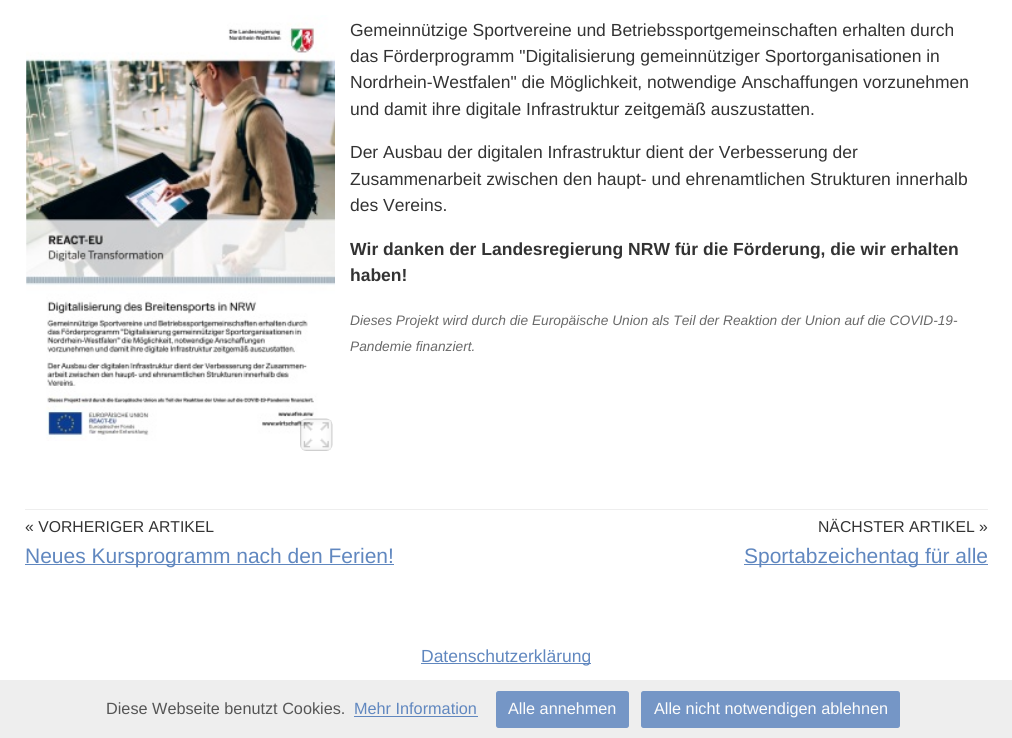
#include <cairo.h>
#include <math.h>
#include <stddef.h>

typedef struct { const char *family; double size; int italic, bold; unsigned color; } style_t;
static cairo_t *ctx;

static void ink(unsigned color) {
    cairo_set_source_rgb(ctx, (color >> 16) / 255.0, (color >> 8 & 255) / 255.0, (color & 255) / 255.0);
}

static void write(double x, double y, const char *s, const style_t *st) {
    cairo_select_font_face(ctx, st->family, st->italic ? CAIRO_FONT_SLANT_ITALIC : CAIRO_FONT_SLANT_NORMAL,
        st->bold ? CAIRO_FONT_WEIGHT_BOLD : CAIRO_FONT_WEIGHT_NORMAL);
    cairo_set_font_size(ctx, st->size);
    ink(st->color);
    cairo_move_to(ctx, x, y);
    cairo_show_text(ctx, s);
}

static void block(double x, double y, double w, double h, unsigned color) {
    ink(color);
    cairo_rectangle(ctx, x, y, w, h);
    cairo_fill(ctx);
}

static void round_path(double x, double y, double w, double h, double r) {
    cairo_new_sub_path(ctx);
    cairo_arc(ctx, x + w - r, y + h - r, r, 0, M_PI / 2);
    cairo_arc(ctx, x + r, y + h - r, r, M_PI / 2, M_PI);
    cairo_arc(ctx, x + r, y + r, r, M_PI, 1.5 * M_PI);
    cairo_arc(ctx, x + w - r, y + r, r, 1.5 * M_PI, 2 * M_PI);
    cairo_close_path(ctx);
}

static void paste(const char *path, double x, double y, double w, double h) {
    cairo_surface_t *image = cairo_image_surface_create_from_png(path);
    cairo_save(ctx);
    cairo_set_source_surface(ctx, image, x, y);
    cairo_rectangle(ctx, x, y, w, h);
    cairo_fill(ctx);
    cairo_restore(ctx);
    cairo_surface_destroy(image);
}

static const style_t s1 = {"Liberation Sans", 17.5, 0, 0, 0x333333};
static const style_t s2 = {"Liberation Sans", 17.5, 0, 1, 0x333333};
static const style_t s3 = {"Liberation Sans", 13.75, 1, 0, 0x696969};
static const style_t s4 = {"Liberation Sans", 15.75, 0, 0, 0x333333};
static const style_t s5 = {"Liberation Sans", 21, 0, 0, 0x6087bf};
static const style_t s6 = {"Liberation Sans", 17.5, 0, 0, 0x6087bf};
static const style_t s7 = {"Liberation Sans", 16.25, 0, 0, 0x555555};
static const style_t s8 = {"Liberation Sans", 16.25, 0, 0, 0x6087bf};
static const style_t s9 = {"Liberation Sans", 16.25, 0, 0, 0xfcfcfc};

int main(void) {
    cairo_surface_t *surface = cairo_image_surface_create(CAIRO_FORMAT_RGB24, 1012, 738);
    ctx = cairo_create(surface);
    cairo_font_options_t *options = cairo_font_options_create();
    cairo_font_options_set_hint_metrics(options, CAIRO_HINT_METRICS_OFF);
    cairo_font_options_set_hint_style(options, CAIRO_HINT_STYLE_NONE);
    cairo_set_font_options(ctx, options);
    cairo_set_miter_limit(ctx, 4);
    ink(0xffffff);
    cairo_paint(ctx);
    paste("pic1.png", 26, 15, 309, 426);
    paste("pic2.png", 300, 418, 33, 33);
    write(350, 36, "Gemeinnützige Sportvereine und Betriebssportgemeinschaften erhalten durch", &s1);
    write(350, 62, "das Förderprogramm \"Digitalisierung gemeinnütziger Sportorganisationen in", &s1);
    write(350, 88, "Nordrhein-Westfalen\" die Möglichkeit, notwendige Anschaffungen vorzunehmen", &s1);
    write(350, 115, "und damit ihre digitale Infrastruktur zeitgemäß auszustatten.", &s1);
    write(350, 158, "Der Ausbau der digitalen Infrastruktur dient der Verbesserung der", &s1);
    write(350, 185, "Zusammenarbeit zwischen den haupt- und ehrenamtlichen Strukturen innerhalb", &s1);
    write(350, 211, "des Vereins.", &s1);
    write(350, 255, "Wir danken der Landesregierung NRW für die Förderung, die wir erhalten", &s2);
    write(350, 281, "haben!", &s2);
    write(350, 325, "Dieses Projekt wird durch die Europäische Union als Teil der Reaktion der Union auf die COVID-19-", &s3);
    write(350, 351, "Pandemie finanziert.", &s3);
    block(25, 509, 963, 1, 0xeeeeee);
    write(25, 532, "« VORHERIGER ARTIKEL", &s4);
    block(25, 564, 369, 1, 0x6087bf);
    write(25, 563, "Neues Kursprogramm nach den Ferien!", &s5);
    write(818, 532, "NÄCHSTER ARTIKEL »", &s4);
    block(744, 564, 244, 1, 0x6087bf);
    write(744, 563, "Sportabzeichentag für alle", &s5);
    block(421, 663, 170, 1, 0x6087bf);
    write(421, 662, "Datenschutzerklärung", &s6);
    block(0, 680, 1012, 58, 0xeeeeee);
    write(106, 714, "Diese Webseite benutzt Cookies.", &s7);
    write(354, 714, "Mehr Information", &s8);
    block(354, 716, 124, 1, 0x6087bf);
    ink(0x7596c6);
    round_path(496, 691, 133, 37, 2.5);
    cairo_fill(ctx);
    write(508, 714, "Alle annehmen", &s9);
    ink(0x7596c6);
    round_path(641, 691, 259, 37, 2.5);
    cairo_fill(ctx);
    write(654, 714, "Alle nicht notwendigen ablehnen", &s9);
    cairo_surface_write_to_png(surface, "screenshot.png");
    cairo_font_options_destroy(options);
    cairo_destroy(ctx);
    cairo_surface_destroy(surface);
    return 0;
}
